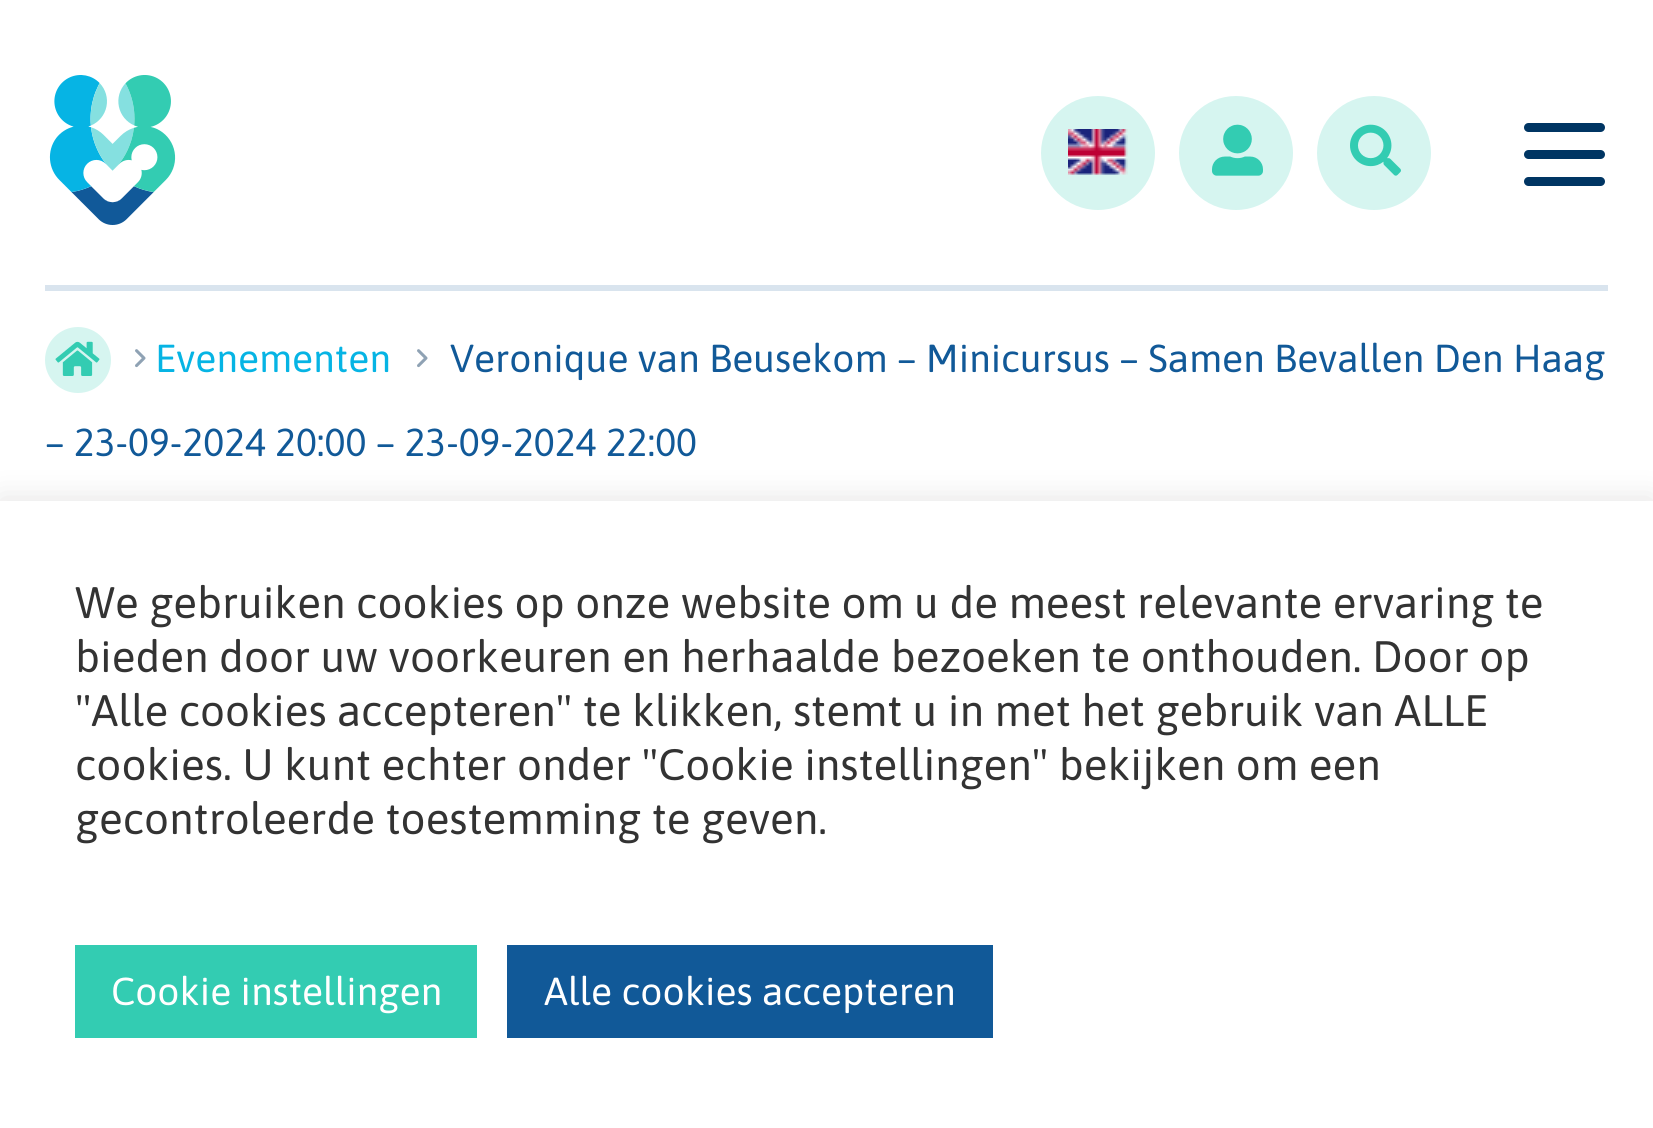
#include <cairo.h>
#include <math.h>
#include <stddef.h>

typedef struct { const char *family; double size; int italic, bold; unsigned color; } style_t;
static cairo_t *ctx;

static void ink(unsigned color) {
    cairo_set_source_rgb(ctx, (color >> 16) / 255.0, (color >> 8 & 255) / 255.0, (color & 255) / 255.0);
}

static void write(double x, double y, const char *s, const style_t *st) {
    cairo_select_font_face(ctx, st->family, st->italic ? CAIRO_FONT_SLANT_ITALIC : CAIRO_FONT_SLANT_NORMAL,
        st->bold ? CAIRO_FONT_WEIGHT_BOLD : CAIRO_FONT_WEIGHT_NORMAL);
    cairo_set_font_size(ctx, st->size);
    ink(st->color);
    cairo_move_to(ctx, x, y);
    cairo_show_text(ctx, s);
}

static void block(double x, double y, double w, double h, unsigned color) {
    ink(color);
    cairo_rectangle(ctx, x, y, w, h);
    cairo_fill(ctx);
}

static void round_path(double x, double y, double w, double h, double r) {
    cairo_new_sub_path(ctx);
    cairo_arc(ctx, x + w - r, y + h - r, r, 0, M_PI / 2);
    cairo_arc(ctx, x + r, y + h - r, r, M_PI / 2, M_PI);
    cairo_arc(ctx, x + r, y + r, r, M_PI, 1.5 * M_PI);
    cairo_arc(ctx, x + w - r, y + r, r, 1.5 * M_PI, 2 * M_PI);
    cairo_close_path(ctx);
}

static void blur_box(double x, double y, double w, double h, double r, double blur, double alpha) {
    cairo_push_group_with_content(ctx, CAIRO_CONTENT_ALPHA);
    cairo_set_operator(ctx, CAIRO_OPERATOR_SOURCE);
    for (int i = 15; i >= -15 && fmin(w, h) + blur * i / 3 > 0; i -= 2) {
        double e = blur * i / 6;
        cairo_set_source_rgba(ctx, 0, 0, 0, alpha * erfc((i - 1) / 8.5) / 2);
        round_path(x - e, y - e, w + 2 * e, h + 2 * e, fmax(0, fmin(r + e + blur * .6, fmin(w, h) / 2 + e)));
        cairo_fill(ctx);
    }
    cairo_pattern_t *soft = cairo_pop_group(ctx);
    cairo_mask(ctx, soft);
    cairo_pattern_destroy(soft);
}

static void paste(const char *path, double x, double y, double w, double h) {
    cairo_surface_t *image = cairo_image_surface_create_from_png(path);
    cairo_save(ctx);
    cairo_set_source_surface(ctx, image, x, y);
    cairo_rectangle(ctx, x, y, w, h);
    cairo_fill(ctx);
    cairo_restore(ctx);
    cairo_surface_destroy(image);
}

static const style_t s1 = {"Asap", 39, 0, 0, 0x06b4e4};
static const style_t s2 = {"Asap", 39, 0, 0, 0x115998};
static const style_t s3 = {"Asap", 44, 0, 0, 0x333333};
static const style_t s4 = {"Asap", 39, 0, 0, 0xffffff};

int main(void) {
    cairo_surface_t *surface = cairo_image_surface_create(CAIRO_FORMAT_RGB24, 1653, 1128);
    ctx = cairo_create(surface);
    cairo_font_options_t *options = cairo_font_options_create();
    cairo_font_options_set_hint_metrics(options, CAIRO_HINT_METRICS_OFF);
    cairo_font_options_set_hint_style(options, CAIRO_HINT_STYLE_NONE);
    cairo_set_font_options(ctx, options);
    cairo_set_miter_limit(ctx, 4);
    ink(0xffffff);
    cairo_paint(ctx);
    block(45, 285, 1563, 6, 0xd9e4ee);
    paste("pic1.png", 49, 75, 127, 150);
    ink(0xd6f5f0);
    cairo_arc(ctx, 1098, 153, 57, 0, 2 * M_PI);
    cairo_fill(ctx);
    paste("pic2.png", 1068, 129, 60, 46);
    cairo_arc(ctx, 1236, 153, 57, 0, 2 * M_PI);
    cairo_fill(ctx);
    paste("pic3.png", 1212, 124, 51, 52);
    cairo_arc(ctx, 1374, 153, 57, 0, 2 * M_PI);
    cairo_fill(ctx);
    paste("pic4.png", 1350, 124, 51, 52);
    ink(0x003563);
    round_path(1524, 123, 81, 9, 4.5);
    cairo_fill(ctx);
    round_path(1524, 150, 81, 9, 4.5);
    cairo_fill(ctx);
    round_path(1524, 177, 81, 9, 4.5);
    cairo_fill(ctx);
    ink(0xd6f5f0);
    cairo_arc(ctx, 78, 360, 33, 0, 2 * M_PI);
    cairo_fill(ctx);
    paste("pic5.png", 55, 341, 45, 35);
    paste("pic6.png", 135, 349, 11, 19);
    write(155, 372, "Evenementen", &s1);
    paste("pic6.png", 417, 349, 11, 19);
    write(450, 372, "Veronique van Beusekom – Minicursus – Samen Bevallen Den Haag", &s2);
    write(45, 456, "– 23-09-2024 20:00 – 23-09-2024 22:00", &s2);
    ink(0xacabab);
    blur_box(0, 498, 1653, 627, 0, 15, 0.3);
    block(0, 501, 1653, 627, 0xffffff);
    write(75, 618, "We gebruiken cookies op onze website om u de meest relevante ervaring te", &s3);
    write(75, 672, "bieden door uw voorkeuren en herhaalde bezoeken te onthouden. Door op", &s3);
    write(75, 726, "\"Alle cookies accepteren\" te klikken, stemt u in met het gebruik van ALLE", &s3);
    write(75, 780, "cookies. U kunt echter onder \"Cookie instellingen\" bekijken om een", &s3);
    write(75, 834, "gecontroleerde toestemming te geven.", &s3);
    block(75, 945, 402, 93, 0x33ccb2);
    write(111, 1005, "Cookie instellingen", &s4);
    block(507, 945, 486, 93, 0x115998);
    write(544, 1005, "Alle cookies accepteren", &s4);
    cairo_surface_write_to_png(surface, "screenshot.png");
    cairo_font_options_destroy(options);
    cairo_destroy(ctx);
    cairo_surface_destroy(surface);
    return 0;
}
